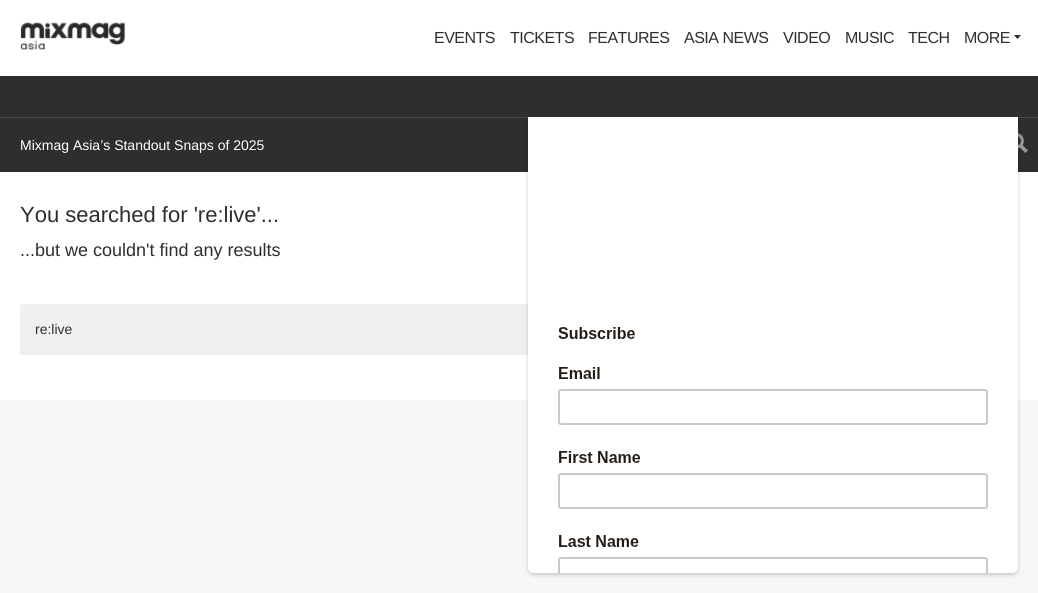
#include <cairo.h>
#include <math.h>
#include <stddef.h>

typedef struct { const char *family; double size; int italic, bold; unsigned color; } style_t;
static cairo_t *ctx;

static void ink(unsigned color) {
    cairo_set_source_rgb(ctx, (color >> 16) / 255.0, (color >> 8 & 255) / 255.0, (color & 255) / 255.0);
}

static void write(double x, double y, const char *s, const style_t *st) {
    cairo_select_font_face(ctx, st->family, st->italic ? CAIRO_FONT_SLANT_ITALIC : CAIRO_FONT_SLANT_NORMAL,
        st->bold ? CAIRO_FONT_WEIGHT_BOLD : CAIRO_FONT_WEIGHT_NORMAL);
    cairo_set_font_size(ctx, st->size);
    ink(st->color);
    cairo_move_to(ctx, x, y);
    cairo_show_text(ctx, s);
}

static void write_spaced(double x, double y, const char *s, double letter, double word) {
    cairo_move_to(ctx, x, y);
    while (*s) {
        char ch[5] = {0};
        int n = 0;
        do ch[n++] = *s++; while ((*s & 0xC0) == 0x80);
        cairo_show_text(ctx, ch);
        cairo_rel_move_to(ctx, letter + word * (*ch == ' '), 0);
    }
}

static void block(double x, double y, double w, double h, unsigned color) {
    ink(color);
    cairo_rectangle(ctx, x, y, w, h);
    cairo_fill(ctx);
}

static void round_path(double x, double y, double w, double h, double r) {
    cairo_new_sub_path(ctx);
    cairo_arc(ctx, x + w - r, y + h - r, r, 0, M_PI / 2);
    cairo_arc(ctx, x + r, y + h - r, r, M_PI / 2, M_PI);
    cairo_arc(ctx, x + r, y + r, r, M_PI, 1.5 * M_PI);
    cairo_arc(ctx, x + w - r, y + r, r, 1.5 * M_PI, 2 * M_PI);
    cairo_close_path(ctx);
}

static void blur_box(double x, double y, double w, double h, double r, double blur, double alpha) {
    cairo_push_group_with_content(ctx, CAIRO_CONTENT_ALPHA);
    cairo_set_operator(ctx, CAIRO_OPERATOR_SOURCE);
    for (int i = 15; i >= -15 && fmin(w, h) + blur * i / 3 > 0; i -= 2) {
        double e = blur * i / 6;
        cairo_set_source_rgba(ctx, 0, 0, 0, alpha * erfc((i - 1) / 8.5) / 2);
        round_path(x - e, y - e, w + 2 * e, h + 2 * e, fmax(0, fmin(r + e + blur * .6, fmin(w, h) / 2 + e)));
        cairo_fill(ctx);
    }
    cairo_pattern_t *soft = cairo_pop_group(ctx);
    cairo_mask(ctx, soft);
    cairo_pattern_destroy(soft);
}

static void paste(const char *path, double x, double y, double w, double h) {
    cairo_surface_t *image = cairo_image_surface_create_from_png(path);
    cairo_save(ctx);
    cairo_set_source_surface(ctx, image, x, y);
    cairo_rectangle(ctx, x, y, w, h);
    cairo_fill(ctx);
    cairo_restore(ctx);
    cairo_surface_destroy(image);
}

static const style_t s1 = {"Liberation Sans", 14, 0, 0, 0xffffff};
static const style_t s2 = {"Liberation Sans", 22, 0, 0, 0x302e2d};
static const style_t s3 = {"Liberation Sans", 18, 0, 0, 0x302e2d};
static const style_t s4 = {"Liberation Sans", 14, 0, 0, 0x302e2d};

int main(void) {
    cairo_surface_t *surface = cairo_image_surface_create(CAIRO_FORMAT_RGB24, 1038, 593);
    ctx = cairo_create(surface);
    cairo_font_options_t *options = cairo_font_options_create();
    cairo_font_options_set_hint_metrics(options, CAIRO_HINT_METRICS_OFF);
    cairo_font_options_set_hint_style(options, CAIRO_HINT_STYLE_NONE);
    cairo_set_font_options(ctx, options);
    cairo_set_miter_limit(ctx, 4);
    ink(0xf7f7f7);
    cairo_paint(ctx);
    block(0, 0, 1038, 76, 0xffffff);
    paste("pic1.png", 20, 22, 105, 28);
    cairo_select_font_face(ctx, "Liberation Sans", CAIRO_FONT_SLANT_NORMAL, CAIRO_FONT_WEIGHT_NORMAL);
    cairo_set_font_size(ctx, 16);
    ink(0x302e2d);
    write_spaced(434, 43, "EVENTS", -0.5, 0);
    write_spaced(510, 43, "TICKETS", -0.5, 0);
    write_spaced(588, 43, "FEATURES", -0.5, 0);
    write_spaced(684, 43, "ASIA NEWS", -0.5, 0);
    write_spaced(783, 43, "VIDEO", -0.5, 0);
    write_spaced(845, 43, "MUSIC", -0.5, 0);
    write_spaced(908, 43, "TECH", -0.5, 0);
    write_spaced(964, 43, "MORE", -0.5, 0);
    paste("pic2.png", 1014, 35, 7, 4);
    block(0, 118, 1038, 54, 0x302e2d);
    block(0, 117, 1038, 1, 0x4a4a4a);
    paste("pic3.png", 1018, 133, 10, 20);
    block(0, 172, 1038, 228, 0xffffff);
    ink(0xf1f0f0);
    round_path(20, 304, 594, 51, 2);
    cairo_fill(ctx);
    ink(0x000000);
    blur_box(528, 95, 490, 480, 6, 2, 0.2);
    ink(0xffffff);
    round_path(528, 93, 490, 480, 6);
    cairo_fill(ctx);
    block(0, 76, 1038, 41, 0x302e2d);
    write(20, 150, "Mixmag Asia’s Standout Snaps of 2025", &s1);
    write(20, 222, "You searched for 're:live'...", &s2);
    write(20, 256, "...but we couldn't find any results", &s3);
    write(35, 334, "re:live", &s4);
    paste("pic4.png", 528, 327, 490, 246);
    cairo_surface_write_to_png(surface, "screenshot.png");
    cairo_font_options_destroy(options);
    cairo_destroy(ctx);
    cairo_surface_destroy(surface);
    return 0;
}
